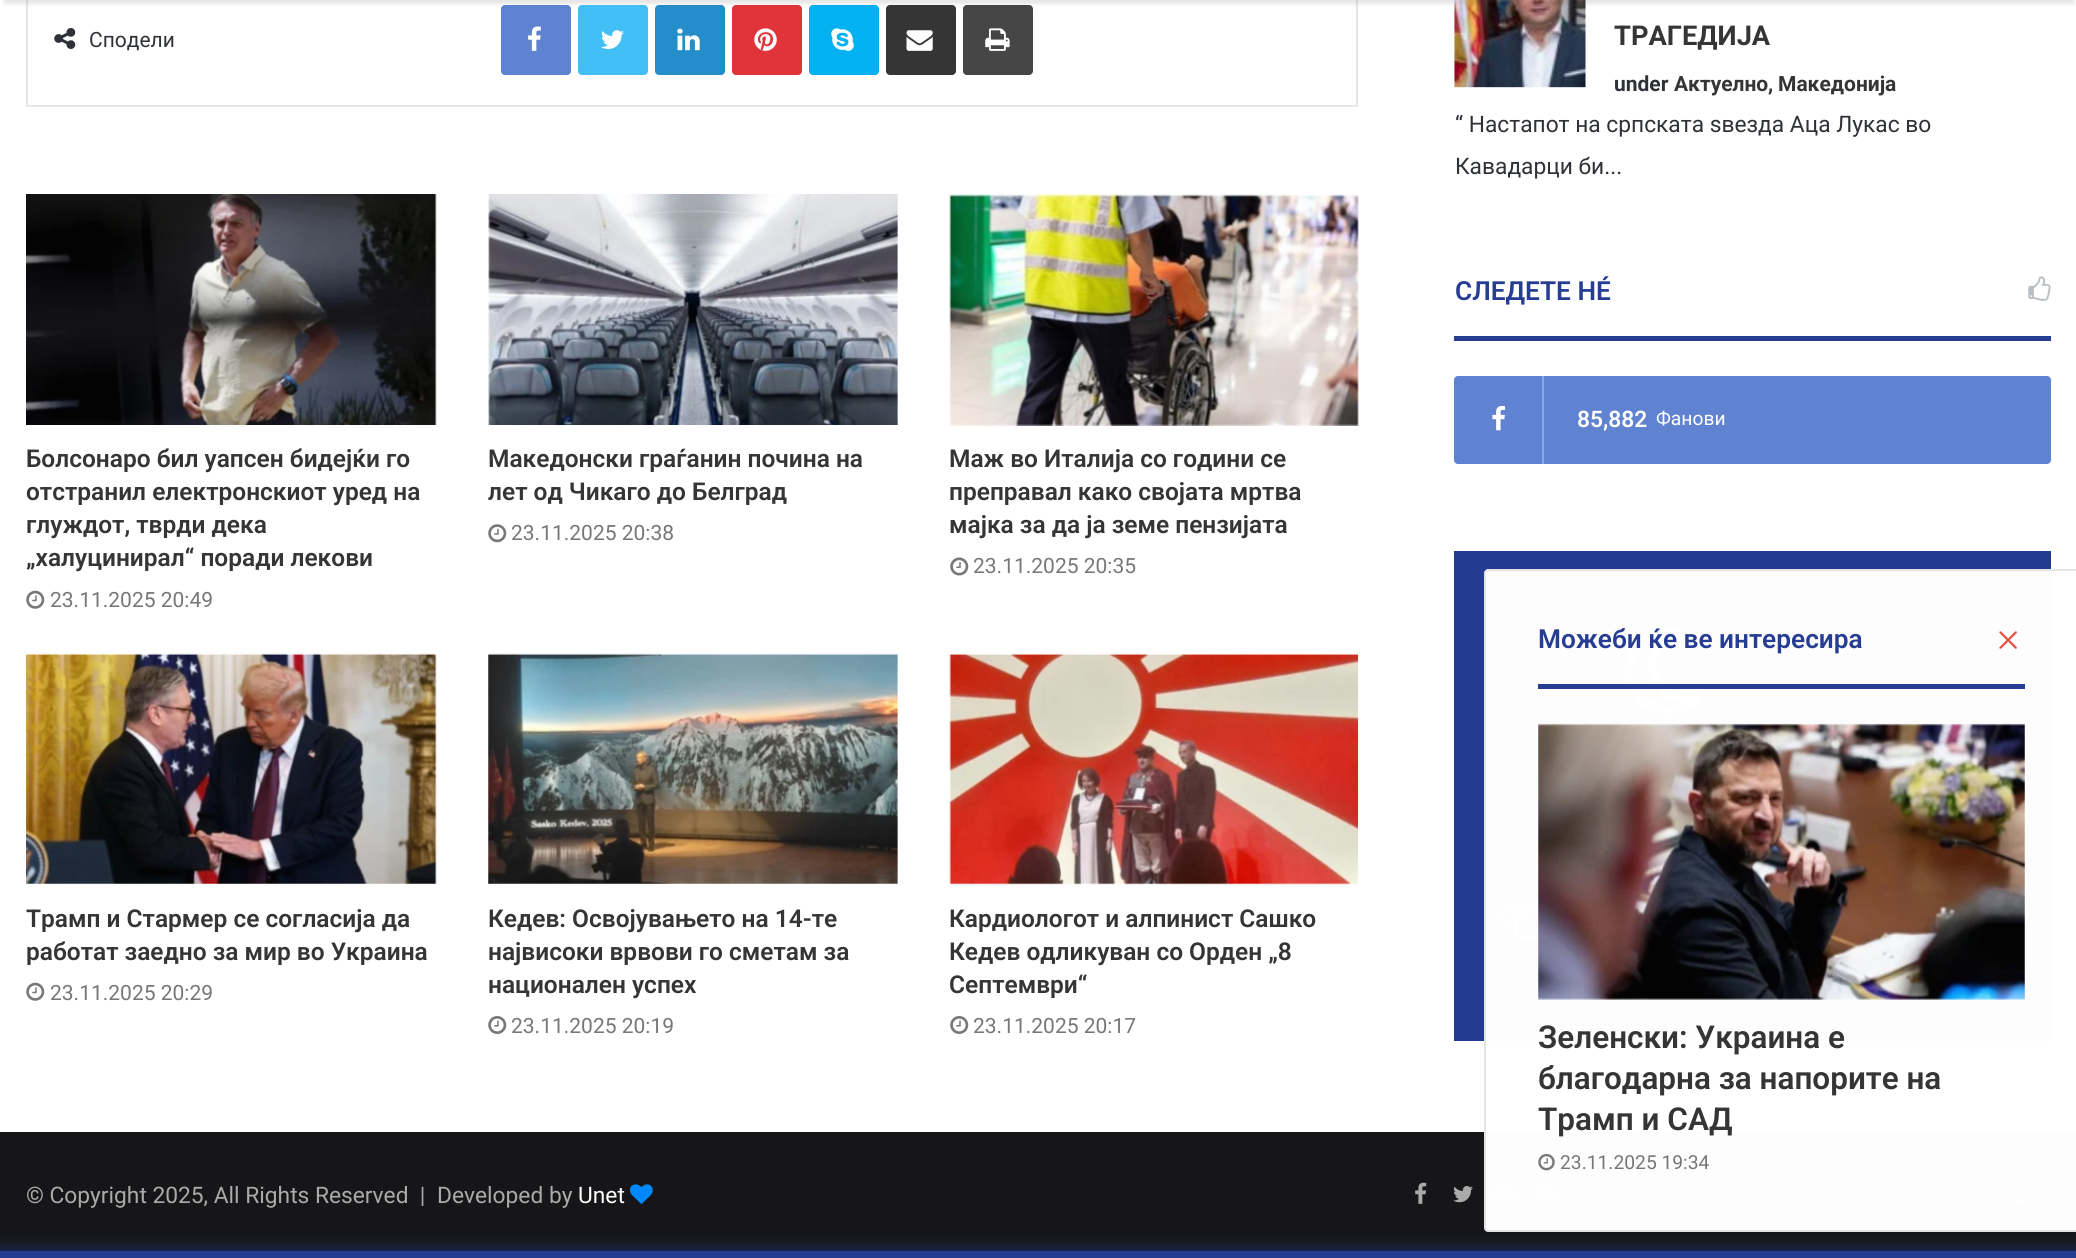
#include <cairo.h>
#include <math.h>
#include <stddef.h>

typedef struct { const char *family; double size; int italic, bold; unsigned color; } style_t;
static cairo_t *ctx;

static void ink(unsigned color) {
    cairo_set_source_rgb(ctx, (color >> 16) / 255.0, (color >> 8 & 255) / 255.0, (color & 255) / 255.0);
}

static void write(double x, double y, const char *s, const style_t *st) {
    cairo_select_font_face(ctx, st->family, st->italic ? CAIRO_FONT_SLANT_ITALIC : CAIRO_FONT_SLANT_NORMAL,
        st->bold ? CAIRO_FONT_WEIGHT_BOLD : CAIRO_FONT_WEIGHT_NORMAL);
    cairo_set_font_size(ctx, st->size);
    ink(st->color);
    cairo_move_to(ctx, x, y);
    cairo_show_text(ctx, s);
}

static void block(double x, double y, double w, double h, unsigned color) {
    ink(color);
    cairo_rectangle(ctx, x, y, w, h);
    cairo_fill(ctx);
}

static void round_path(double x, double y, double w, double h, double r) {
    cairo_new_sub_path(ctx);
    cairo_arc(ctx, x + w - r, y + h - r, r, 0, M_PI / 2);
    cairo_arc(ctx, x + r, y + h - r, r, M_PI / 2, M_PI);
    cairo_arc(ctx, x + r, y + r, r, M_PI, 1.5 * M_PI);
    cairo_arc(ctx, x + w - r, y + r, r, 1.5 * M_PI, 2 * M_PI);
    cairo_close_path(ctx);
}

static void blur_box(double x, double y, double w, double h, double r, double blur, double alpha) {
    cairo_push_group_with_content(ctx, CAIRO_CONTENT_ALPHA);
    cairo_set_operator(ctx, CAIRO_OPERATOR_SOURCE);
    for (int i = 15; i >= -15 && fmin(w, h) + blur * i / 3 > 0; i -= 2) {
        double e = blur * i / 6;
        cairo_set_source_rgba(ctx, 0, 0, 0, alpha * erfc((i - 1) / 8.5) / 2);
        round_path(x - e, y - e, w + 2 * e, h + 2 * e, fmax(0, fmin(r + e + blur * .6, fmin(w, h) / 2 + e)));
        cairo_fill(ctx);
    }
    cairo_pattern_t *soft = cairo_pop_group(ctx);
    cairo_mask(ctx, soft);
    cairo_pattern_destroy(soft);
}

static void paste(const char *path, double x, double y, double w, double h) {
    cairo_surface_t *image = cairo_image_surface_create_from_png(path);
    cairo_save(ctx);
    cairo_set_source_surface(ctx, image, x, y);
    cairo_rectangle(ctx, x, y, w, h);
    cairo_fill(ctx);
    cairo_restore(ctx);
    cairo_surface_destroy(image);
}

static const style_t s1 = {"Roboto", 21, 0, 0, 0x2e3136};
static const style_t s2 = {"Roboto SemiBold", 24.5, 0, 0, 0x353535};
static const style_t s3 = {"Roboto", 21, 0, 0, 0x777777};
static const style_t s4 = {"Roboto", 27.25, 0, 1, 0x353535};
static const style_t s5 = {"Roboto", 21, 0, 1, 0x2e3136};
static const style_t s6 = {"Roboto", 21, 0, 1, 0x353535};
static const style_t s7 = {"Roboto", 22.75, 0, 0, 0x2e3136};
static const style_t s8 = {"Roboto SemiBold", 26.25, 0, 0, 0x263d93};
static const style_t s9 = {"Roboto SemiBold", 22.75, 0, 0, 0xffffff};
static const style_t s10 = {"Roboto", 19.25, 0, 0, 0xffffff};
static const style_t s11 = {"Roboto SemiBold", 31.5, 0, 0, 0x353535};
static const style_t s12 = {"Roboto", 19.25, 0, 0, 0x777777};
static const style_t s13 = {"Roboto", 22.75, 0, 0, 0xaaaaaa};
static const style_t s14 = {"Roboto", 22.75, 0, 0, 0xffffff};

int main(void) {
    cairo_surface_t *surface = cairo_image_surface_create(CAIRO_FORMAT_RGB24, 2076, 1258);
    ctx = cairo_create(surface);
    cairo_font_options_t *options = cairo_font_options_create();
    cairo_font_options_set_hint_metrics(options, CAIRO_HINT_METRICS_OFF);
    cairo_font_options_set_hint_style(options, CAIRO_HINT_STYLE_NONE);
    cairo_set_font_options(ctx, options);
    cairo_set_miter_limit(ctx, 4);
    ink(0xffffff);
    cairo_paint(ctx);
    cairo_rectangle(ctx, 27, -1, 1330, 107);
    ink(0xe6e6e6);
    cairo_stroke(ctx);
    ink(0x5f83d1);
    round_path(501, 5, 70, 70, 4);
    cairo_fill(ctx);
    ink(0x42c0f5);
    round_path(578, 5, 70, 70, 4);
    cairo_fill(ctx);
    ink(0x258dc9);
    round_path(655, 5, 70, 70, 4);
    cairo_fill(ctx);
    ink(0xe1333a);
    round_path(732, 5, 70, 70, 4);
    cairo_fill(ctx);
    ink(0x03b0f0);
    round_path(809, 5, 70, 70, 4);
    cairo_fill(ctx);
    ink(0x353535);
    round_path(886, 5, 70, 70, 4);
    cairo_fill(ctx);
    ink(0x464646);
    round_path(963, 5, 70, 70, 4);
    cairo_fill(ctx);
    paste("pic19.png", 1454, 0, 132, 88);
    ink(0x000000);
    blur_box(4, -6, 2070, 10, 0, 2, 0.1);
    paste("pic1.png", 54, 28, 22, 21);
    write(89, 47, "Сподели", &s1);
    paste("pic2.png", 528, 26, 13, 25);
    paste("pic3.png", 601, 30, 23, 19);
    paste("pic4.png", 677, 28, 23, 23);
    paste("pic5.png", 754, 28, 23, 23);
    paste("pic6.png", 831, 28, 23, 23);
    paste("pic7.png", 906, 30, 27, 21);
    paste("pic8.png", 985, 28, 25, 23);
    paste("pic9.png", 26, 194, 411, 231);
    write(26, 467, "Болсонаро бил уапсен бидејќи го", &s2);
    write(26, 500, "отстранил електронскиот уред на", &s2);
    write(26, 533, "глуждот, тврди дека", &s2);
    write(26, 566, "„халуцинирал“ поради лекови", &s2);
    paste("pic10.png", 26, 590, 19, 19);
    write(50, 607, "23.11.2025 20:49", &s3);
    paste("pic11.png", 488, 194, 410, 231);
    write(488, 467, "Македонски граѓанин почина на", &s2);
    write(488, 500, "лет од Чикаго до Белград", &s2);
    paste("pic12.png", 488, 524, 19, 19);
    write(511, 540, "23.11.2025 20:38", &s3);
    paste("pic13.png", 949, 194, 410, 232);
    write(949, 467, "Маж во Италија со години се", &s2);
    write(949, 500, "преправал како својата мртва", &s2);
    write(949, 533, "мајка за да ја земе пензијата", &s2);
    paste("pic14.png", 950, 557, 19, 19);
    write(973, 573, "23.11.2025 20:35", &s3);
    paste("pic15.png", 26, 653, 411, 231);
    write(26, 927, "Трамп и Стармер се согласија да", &s2);
    write(26, 960, "работат заедно за мир во Украина", &s2);
    paste("pic10.png", 26, 982, 19, 19);
    write(50, 1000, "23.11.2025 20:29", &s3);
    paste("pic16.png", 488, 653, 410, 231);
    write(488, 927, "Кедев: Освојувањето на 14-те", &s2);
    write(488, 960, "највисоки врвови го сметам за", &s2);
    write(488, 993, "национален успех", &s2);
    paste("pic17.png", 488, 1016, 19, 18);
    write(511, 1033, "23.11.2025 20:19", &s3);
    paste("pic18.png", 949, 653, 410, 232);
    write(949, 927, "Кардиологот и алпинист Сашко", &s2);
    write(949, 960, "Кедев одликуван со Орден „8", &s2);
    write(949, 993, "Септември“", &s2);
    paste("pic17.png", 950, 1016, 19, 18);
    write(973, 1033, "23.11.2025 20:17", &s3);
    write(1614, 45, "ТРАГЕДИЈА", &s4);
    write(1614, 91, "under", &s5);
    write(1674, 91, "Актуелно", &s6);
    write(1768, 91, ",", &s5);
    write(1778, 91, "Македонија", &s6);
    write(1455, 132, "“ Настапот на српската ѕвезда Аца Лукас во", &s7);
    write(1455, 174, "Кавадарци би...", &s7);
    block(1454, 336, 597, 5, 0x263d93);
    write(1455, 300, "СЛЕДЕТЕ НÉ", &s8);
    paste("pic20.png", 2028, 276, 23, 25);
    ink(0x5f83d1);
    round_path(1454, 376, 597, 88, 4);
    cairo_fill(ctx);
    block(1542, 376, 2, 88, 0x8fa8df);
    paste("pic21.png", 1492, 405, 14, 26);
    write(1577, 427, "85,882", &s9);
    write(1656, 425, "Фанови", &s10);
    block(1454, 551, 597, 490, 0x243b92);
    paste("pic22.png", 1625, 628, 78, 86);
    paste("pic23.png", 1816, 759, 7, 20);
    paste("pic24.png", 1814, 794, 12, 15);
    paste("pic25.png", 1811, 827, 18, 14);
    paste("pic26.png", 1560, 890, 23, 25);
    paste("pic27.png", 1500, 904, 25, 21);
    paste("pic29.png", 1513, 907, 50, 18);
    paste("pic28.png", 1513, 898, 59, 43);
    paste("pic30.png", 1620, 887, 56, 56);
    paste("pic31.png", 1765, 892, 33, 34);
    paste("pic27.png", 1710, 904, 25, 21);
    paste("pic33.png", 1723, 906, 58, 24);
    paste("pic32.png", 1723, 898, 59, 43);
    paste("pic34.png", 1870, 892, 33, 33);
    paste("pic36.png", 1865, 906, 21, 24);
    paste("pic35.png", 1830, 899, 59, 41);
    paste("pic37.png", 1848, 925, 7, 9);
    paste("pic38.png", 1860, 925, 7, 9);
    paste("pic39.png", 1855, 934, 7, 9);
    paste("pic26.png", 1980, 890, 23, 25);
    paste("pic40.png", 1935, 899, 59, 41);
    paste("pic37.png", 1953, 925, 7, 9);
    paste("pic38.png", 1965, 925, 7, 9);
    paste("pic39.png", 1960, 934, 7, 9);
    block(0, 1132, 2076, 119, 0x161619);
    paste("pic47.png", 1492, 1186, 24, 17);
    paste("pic48.png", 1538, 1184, 19, 19);
    block(1990, 1171, 61, 61, 0x243b92);
    paste("pic49.png", 2013, 1198, 14, 8);
    cairo_set_source_rgba(ctx, 1, 1, 1, 0.99);
    cairo_new_path(ctx);
    cairo_move_to(ctx, 1488, 569);
    cairo_line_to(ctx, 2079, 569);
    cairo_line_to(ctx, 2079, 1232);
    cairo_line_to(ctx, 1488, 1232);
    cairo_curve_to(ctx, 1486, 1232, 1484, 1230, 1484, 1228);
    cairo_line_to(ctx, 1484, 573);
    cairo_curve_to(ctx, 1484, 571, 1486, 569, 1488, 569);
    cairo_close_path(ctx);
    cairo_fill(ctx);
    cairo_new_path(ctx);
    cairo_move_to(ctx, 1488, 570);
    cairo_line_to(ctx, 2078, 570);
    cairo_line_to(ctx, 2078, 1231);
    cairo_line_to(ctx, 1488, 1231);
    cairo_curve_to(ctx, 1486.5, 1231, 1485, 1229.5, 1485, 1228);
    cairo_line_to(ctx, 1485, 573);
    cairo_curve_to(ctx, 1485, 571.5, 1486.5, 570, 1488, 570);
    cairo_close_path(ctx);
    cairo_set_source_rgba(ctx, 0, 0, 0, 0.1);
    cairo_stroke(ctx);
    block(1538, 684, 487, 5, 0x263d93);
    write(1538, 648, "Можеби ќе ве интересира", &s8);
    paste("pic41.png", 1999, 631, 18, 18);
    paste("pic42.png", 1538, 723, 487, 277);
    write(1538, 1048, "Зеленски: Украина е", &s11);
    write(1538, 1089, "благодарна за напорите на", &s11);
    write(1538, 1130, "Трамп и САД", &s11);
    paste("pic43.png", 1538, 1153, 17, 18);
    write(1560, 1169, "23.11.2025 19:34", &s12);
    write(26, 1203, "© Copyright 2025, All Rights Reserved  |", &s13);
    write(437, 1203, "Developed by", &s13);
    write(578, 1203, "Unet", &s14);
    paste("pic44.png", 630, 1184, 23, 20);
    paste("pic45.png", 1415, 1182, 12, 22);
    paste("pic46.png", 1453, 1186, 20, 17);
    ink(0x243b92);
    blur_box(0, 1251, 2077, 7, 0, 9, 0.7);
    block(0, 1251, 2076, 7, 0x243b92);
    cairo_surface_write_to_png(surface, "screenshot.png");
    cairo_font_options_destroy(options);
    cairo_destroy(ctx);
    cairo_surface_destroy(surface);
    return 0;
}
